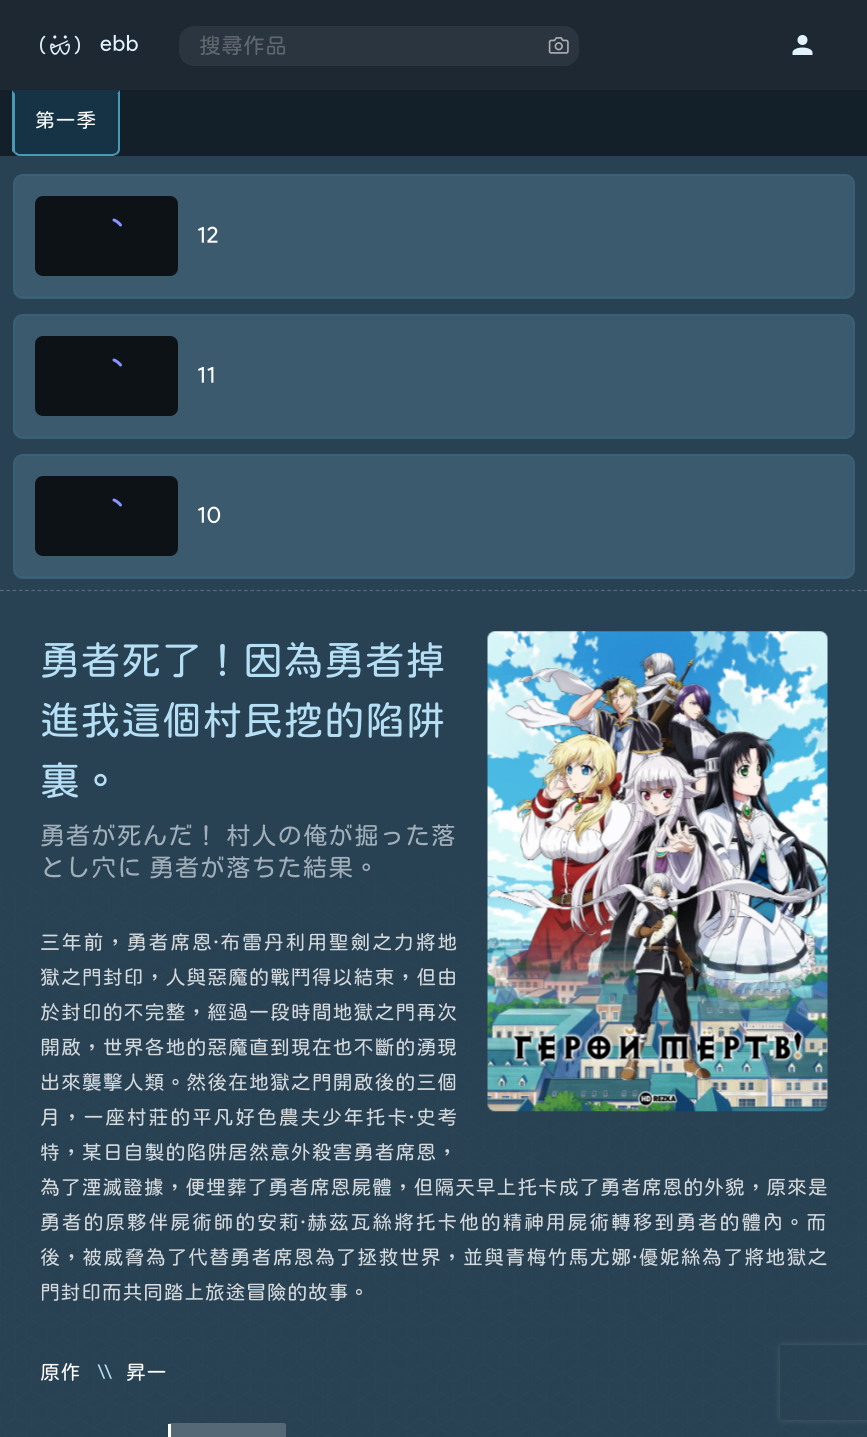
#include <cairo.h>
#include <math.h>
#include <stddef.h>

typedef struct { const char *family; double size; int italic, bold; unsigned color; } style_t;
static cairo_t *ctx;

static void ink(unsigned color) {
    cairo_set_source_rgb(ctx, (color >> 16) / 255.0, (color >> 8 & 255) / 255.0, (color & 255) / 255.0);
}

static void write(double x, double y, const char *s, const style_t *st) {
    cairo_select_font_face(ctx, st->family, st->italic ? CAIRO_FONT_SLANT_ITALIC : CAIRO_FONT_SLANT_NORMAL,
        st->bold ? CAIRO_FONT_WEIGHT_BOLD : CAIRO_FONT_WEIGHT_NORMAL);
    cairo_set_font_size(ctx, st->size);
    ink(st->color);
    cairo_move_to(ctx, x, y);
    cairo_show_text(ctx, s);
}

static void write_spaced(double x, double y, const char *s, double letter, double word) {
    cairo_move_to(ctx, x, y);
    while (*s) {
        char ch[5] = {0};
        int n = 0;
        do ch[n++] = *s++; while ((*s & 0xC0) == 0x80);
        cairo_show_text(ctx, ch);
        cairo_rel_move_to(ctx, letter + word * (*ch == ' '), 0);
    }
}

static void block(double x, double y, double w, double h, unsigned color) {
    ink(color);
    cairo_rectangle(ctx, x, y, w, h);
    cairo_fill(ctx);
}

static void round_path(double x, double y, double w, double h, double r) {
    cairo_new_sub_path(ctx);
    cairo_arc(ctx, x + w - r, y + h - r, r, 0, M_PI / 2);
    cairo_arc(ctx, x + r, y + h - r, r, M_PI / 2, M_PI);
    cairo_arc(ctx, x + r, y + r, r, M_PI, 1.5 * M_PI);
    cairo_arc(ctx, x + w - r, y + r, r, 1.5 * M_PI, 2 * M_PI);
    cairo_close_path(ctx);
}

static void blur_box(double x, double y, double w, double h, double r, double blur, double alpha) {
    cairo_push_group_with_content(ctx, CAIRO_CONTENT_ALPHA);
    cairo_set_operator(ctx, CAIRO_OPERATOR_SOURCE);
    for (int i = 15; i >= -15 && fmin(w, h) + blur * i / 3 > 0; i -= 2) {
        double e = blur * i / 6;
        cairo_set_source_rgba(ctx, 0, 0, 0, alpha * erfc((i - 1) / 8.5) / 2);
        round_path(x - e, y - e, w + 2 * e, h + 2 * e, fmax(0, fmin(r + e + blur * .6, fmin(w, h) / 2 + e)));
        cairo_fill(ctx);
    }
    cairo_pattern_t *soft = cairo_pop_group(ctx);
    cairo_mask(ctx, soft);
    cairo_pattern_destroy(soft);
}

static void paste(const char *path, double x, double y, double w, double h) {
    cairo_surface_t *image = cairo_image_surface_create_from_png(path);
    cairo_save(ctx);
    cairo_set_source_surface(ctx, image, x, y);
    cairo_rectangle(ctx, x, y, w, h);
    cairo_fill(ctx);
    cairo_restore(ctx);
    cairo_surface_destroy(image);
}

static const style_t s1 = {"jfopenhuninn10", 22, 0, 0, 0x60686f};

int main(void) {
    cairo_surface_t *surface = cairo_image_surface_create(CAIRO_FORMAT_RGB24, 867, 1437);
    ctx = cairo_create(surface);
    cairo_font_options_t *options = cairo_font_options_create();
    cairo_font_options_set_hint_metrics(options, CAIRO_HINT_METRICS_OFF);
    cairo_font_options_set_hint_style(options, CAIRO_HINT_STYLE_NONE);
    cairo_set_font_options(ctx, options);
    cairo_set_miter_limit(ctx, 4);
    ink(0x1d2833);
    cairo_paint(ctx);
    block(0, 156, 867, 1281, 0x294253);
    paste("pic1.png", 40, 35, 40, 20);
    cairo_select_font_face(ctx, "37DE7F", CAIRO_FONT_SLANT_NORMAL, CAIRO_FONT_WEIGHT_NORMAL);
    cairo_set_font_size(ctx, 22);
    ink(0xe2f2ff);
    write_spaced(100, 51, "ebb", 0.6, 0);
    ink(0x2b353f);
    round_path(179, 26, 400, 40, 15);
    cairo_fill(ctx);
    write(199, 53, "搜尋作品", &s1);
    paste("pic2.png", 548, 37, 21, 17);
    paste("pic3.png", 792, 35, 21, 20);
    block(0, 90, 867, 66, 0x131f29);
    ink(0x153344);
    cairo_new_path(ctx);
    cairo_move_to(ctx, 13, 90);
    cairo_line_to(ctx, 120, 90);
    cairo_line_to(ctx, 120, 148);
    cairo_curve_to(ctx, 120, 152.5, 116.5, 156, 112, 156);
    cairo_line_to(ctx, 21, 156);
    cairo_curve_to(ctx, 16.5, 156, 13, 152.5, 13, 148);
    cairo_close_path(ctx);
    cairo_fill(ctx);
    ink(0x4b98b5);
    cairo_new_path(ctx);
    cairo_move_to(ctx, 120, 90);
    cairo_line_to(ctx, 117, 94);
    cairo_line_to(ctx, 118, 94);
    cairo_line_to(ctx, 118, 150);
    cairo_line_to(ctx, 116, 153);
    cairo_line_to(ctx, 118, 154);
    cairo_curve_to(ctx, 119, 153, 120, 151, 120, 149);
    cairo_close_path(ctx);
    cairo_fill(ctx);
    cairo_new_path(ctx);
    cairo_move_to(ctx, 118, 154);
    cairo_curve_to(ctx, 116, 155, 114, 156, 112, 156);
    cairo_line_to(ctx, 20, 156);
    cairo_curve_to(ctx, 18, 156, 16, 155, 15, 154);
    cairo_line_to(ctx, 16, 152);
    cairo_curve_to(ctx, 17, 153, 18, 154, 20, 154);
    cairo_line_to(ctx, 112, 154);
    cairo_curve_to(ctx, 114, 154, 115, 153, 116, 153);
    cairo_close_path(ctx);
    cairo_fill(ctx);
    cairo_new_path(ctx);
    cairo_move_to(ctx, 15, 94);
    cairo_line_to(ctx, 15, 149);
    cairo_curve_to(ctx, 15, 150, 15, 152, 16, 152);
    cairo_line_to(ctx, 15, 154);
    cairo_line_to(ctx, 12, 151);
    cairo_line_to(ctx, 12, 90);
    cairo_close_path(ctx);
    cairo_fill(ctx);
    cairo_set_font_size(ctx, 20);
    ink(0xffffff);
    write_spaced(35, 127, "第一季", 0.6, 0);
    round_path(14.5, 175.5, 839, 122, 8.5);
    ink(0x396077);
    cairo_set_line_width(ctx, 3);
    cairo_stroke(ctx);
    ink(0x3b5a6d);
    round_path(15, 176, 838, 120, 8);
    cairo_fill(ctx);
    ink(0x0c1216);
    round_path(35, 196, 143, 80, 8);
    cairo_fill(ctx);
    cairo_new_path(ctx);
    cairo_move_to(ctx, 114, 220);
    cairo_curve_to(ctx, 116.5, 221, 119, 223, 120.5, 225);
    ink(0x8b94fe);
    cairo_set_line_cap(ctx, CAIRO_LINE_CAP_ROUND);
    cairo_stroke(ctx);
    cairo_select_font_face(ctx, "37DE7F", CAIRO_FONT_SLANT_NORMAL, CAIRO_FONT_WEIGHT_NORMAL);
    cairo_set_font_size(ctx, 23);
    ink(0xffffff);
    write_spaced(197, 243, "12", 0.6, 0);
    round_path(14.5, 315.5, 839, 122, 8.5);
    ink(0x396077);
    cairo_set_line_cap(ctx, CAIRO_LINE_CAP_BUTT);
    cairo_stroke(ctx);
    ink(0x3b5a6d);
    round_path(15, 316, 838, 120, 8);
    cairo_fill(ctx);
    ink(0x0c1216);
    round_path(35, 336, 143, 80, 8);
    cairo_fill(ctx);
    cairo_new_path(ctx);
    cairo_move_to(ctx, 114, 360);
    cairo_curve_to(ctx, 116.5, 361, 119, 363, 120.5, 365);
    ink(0x8b94fe);
    cairo_set_line_cap(ctx, CAIRO_LINE_CAP_ROUND);
    cairo_stroke(ctx);
    ink(0xffffff);
    write_spaced(197, 383, "11", 0.6, 0);
    round_path(14.5, 455.5, 839, 122, 8.5);
    ink(0x396077);
    cairo_set_line_cap(ctx, CAIRO_LINE_CAP_BUTT);
    cairo_stroke(ctx);
    ink(0x3b5a6d);
    round_path(15, 456, 838, 120, 8);
    cairo_fill(ctx);
    ink(0x0c1216);
    round_path(35, 476, 143, 80, 8);
    cairo_fill(ctx);
    cairo_new_path(ctx);
    cairo_move_to(ctx, 114, 500);
    cairo_curve_to(ctx, 116.5, 501, 119, 503, 120.5, 505);
    ink(0x8b94fe);
    cairo_set_line_cap(ctx, CAIRO_LINE_CAP_ROUND);
    cairo_stroke(ctx);
    ink(0xffffff);
    write_spaced(197, 523, "10", 0.6, 0);
    cairo_new_path(ctx);
    cairo_move_to(ctx, 0, 590.5);
    cairo_line_to(ctx, 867.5, 590.5);
    ink(0x546876);
    cairo_set_line_width(ctx, 1.2);
    cairo_set_line_cap(ctx, CAIRO_LINE_CAP_BUTT);
    cairo_set_dash(ctx, (double[]){3.75, 2.51}, 2, 0);
    cairo_stroke(ctx);
    cairo_select_font_face(ctx, "jfopenhuninn10", CAIRO_FONT_SLANT_NORMAL, CAIRO_FONT_WEIGHT_NORMAL);
    cairo_set_font_size(ctx, 40);
    ink(0xb5dff5);
    write_spaced(40, 674, "勇者死了！因為勇者掉", 0.6, 0);
    write_spaced(40, 734, "進我這個村民挖的陷阱", 0.6, 0);
    write_spaced(40, 794, "裏。", 0.6, 0);
    cairo_set_font_size(ctx, 25);
    ink(0xa1afbb);
    write_spaced(40, 844, "勇者が死んだ！", 0.6, 0);
    write_spaced(226, 844, "村人の俺が掘った落", 0.6, 0);
    paste("pic5.png", 0, 870, 867, 567);
    write_spaced(40, 876, "とし穴に", 0.6, 0);
    write_spaced(149, 876, "勇者が落ちた結果。", 0.6, 0);
    paste("pic4.png", 487, 631, 341, 481);
    cairo_set_font_size(ctx, 20);
    ink(0xd4d9dd);
    write_spaced(40, 949, "三年前，勇者席恩·布雷丹利用聖劍之力將地", 1.7, 0);
    write_spaced(40, 984, "獄之門封印，人與惡魔的戰鬥得以結束，但由", 0.9, 0);
    write_spaced(40, 1019, "於封印的不完整，經過一段時間地獄之門再次", 0.9, 0);
    write_spaced(40, 1054, "開啟，世界各地的惡魔直到現在也不斷的湧現", 0.9, 0);
    write_spaced(40, 1089, "出來襲擊人類。然後在地獄之門開啟後的三個", 0.9, 0);
    write_spaced(40, 1124, "月，一座村莊的平凡好色農夫少年托卡·史考", 1.7, 0);
    write_spaced(40, 1159, "特，某日自製的陷阱居然意外殺害勇者席恩，", 0.9, 0);
    write_spaced(40, 1194, "為了湮滅證據，便埋葬了勇者席恩屍體，但隔天早上托卡成了勇者席恩的外貌，原來是", 0.75, 0);
    write_spaced(40, 1229, "勇者的原夥伴屍術師的安莉·赫茲瓦絲將托卡他的精神用屍術轉移到勇者的體內。而", 1.7, 0);
    write_spaced(40, 1264, "後，被威脅為了代替勇者席恩為了拯救世界，並與青梅竹馬尤娜·優妮絲為了將地獄之", 1.15, 0);
    write_spaced(40, 1299, "門封印而共同踏上旅途冒險的故事。", 0.6, 0);
    ink(0xffffff);
    write_spaced(40, 1379, "原作", 0.6, 0);
    cairo_select_font_face(ctx, "37DE7F", CAIRO_FONT_SLANT_NORMAL, CAIRO_FONT_WEIGHT_NORMAL);
    ink(0xb5dff5);
    write_spaced(97, 1379, "\\\\", -2, 0);
    cairo_select_font_face(ctx, "jfopenhuninn10", CAIRO_FONT_SLANT_NORMAL, CAIRO_FONT_WEIGHT_NORMAL);
    ink(0xffffff);
    write_spaced(126, 1379, "昇一", 0.6, 0);
    ink(0x546876);
    round_path(168, 1423, 118, 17, 2.5);
    cairo_fill(ctx);
    block(168, 1424, 3, 13, 0xffffff);
    cairo_save(ctx);
    cairo_set_fill_rule(ctx, CAIRO_FILL_RULE_EVEN_ODD);
    cairo_new_path(ctx);
    cairo_move_to(ctx, 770, 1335);
    cairo_line_to(ctx, 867, 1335);
    cairo_line_to(ctx, 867, 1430);
    cairo_line_to(ctx, 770, 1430);
    cairo_close_path(ctx);
    cairo_move_to(ctx, 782.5, 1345);
    cairo_line_to(ctx, 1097.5, 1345);
    cairo_curve_to(ctx, 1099, 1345, 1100, 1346, 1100, 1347.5);
    cairo_line_to(ctx, 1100, 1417.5);
    cairo_curve_to(ctx, 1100, 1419, 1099, 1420, 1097.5, 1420);
    cairo_line_to(ctx, 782.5, 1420);
    cairo_curve_to(ctx, 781, 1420, 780, 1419, 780, 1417.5);
    cairo_line_to(ctx, 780, 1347.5);
    cairo_curve_to(ctx, 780, 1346, 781, 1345, 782.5, 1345);
    cairo_close_path(ctx);
    cairo_clip(ctx);
    ink(0x475c6b);
    blur_box(780, 1345, 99, 75, 2.5, 3, 1);
    cairo_restore(ctx);
    cairo_surface_write_to_png(surface, "screenshot.png");
    cairo_font_options_destroy(options);
    cairo_destroy(ctx);
    cairo_surface_destroy(surface);
    return 0;
}
